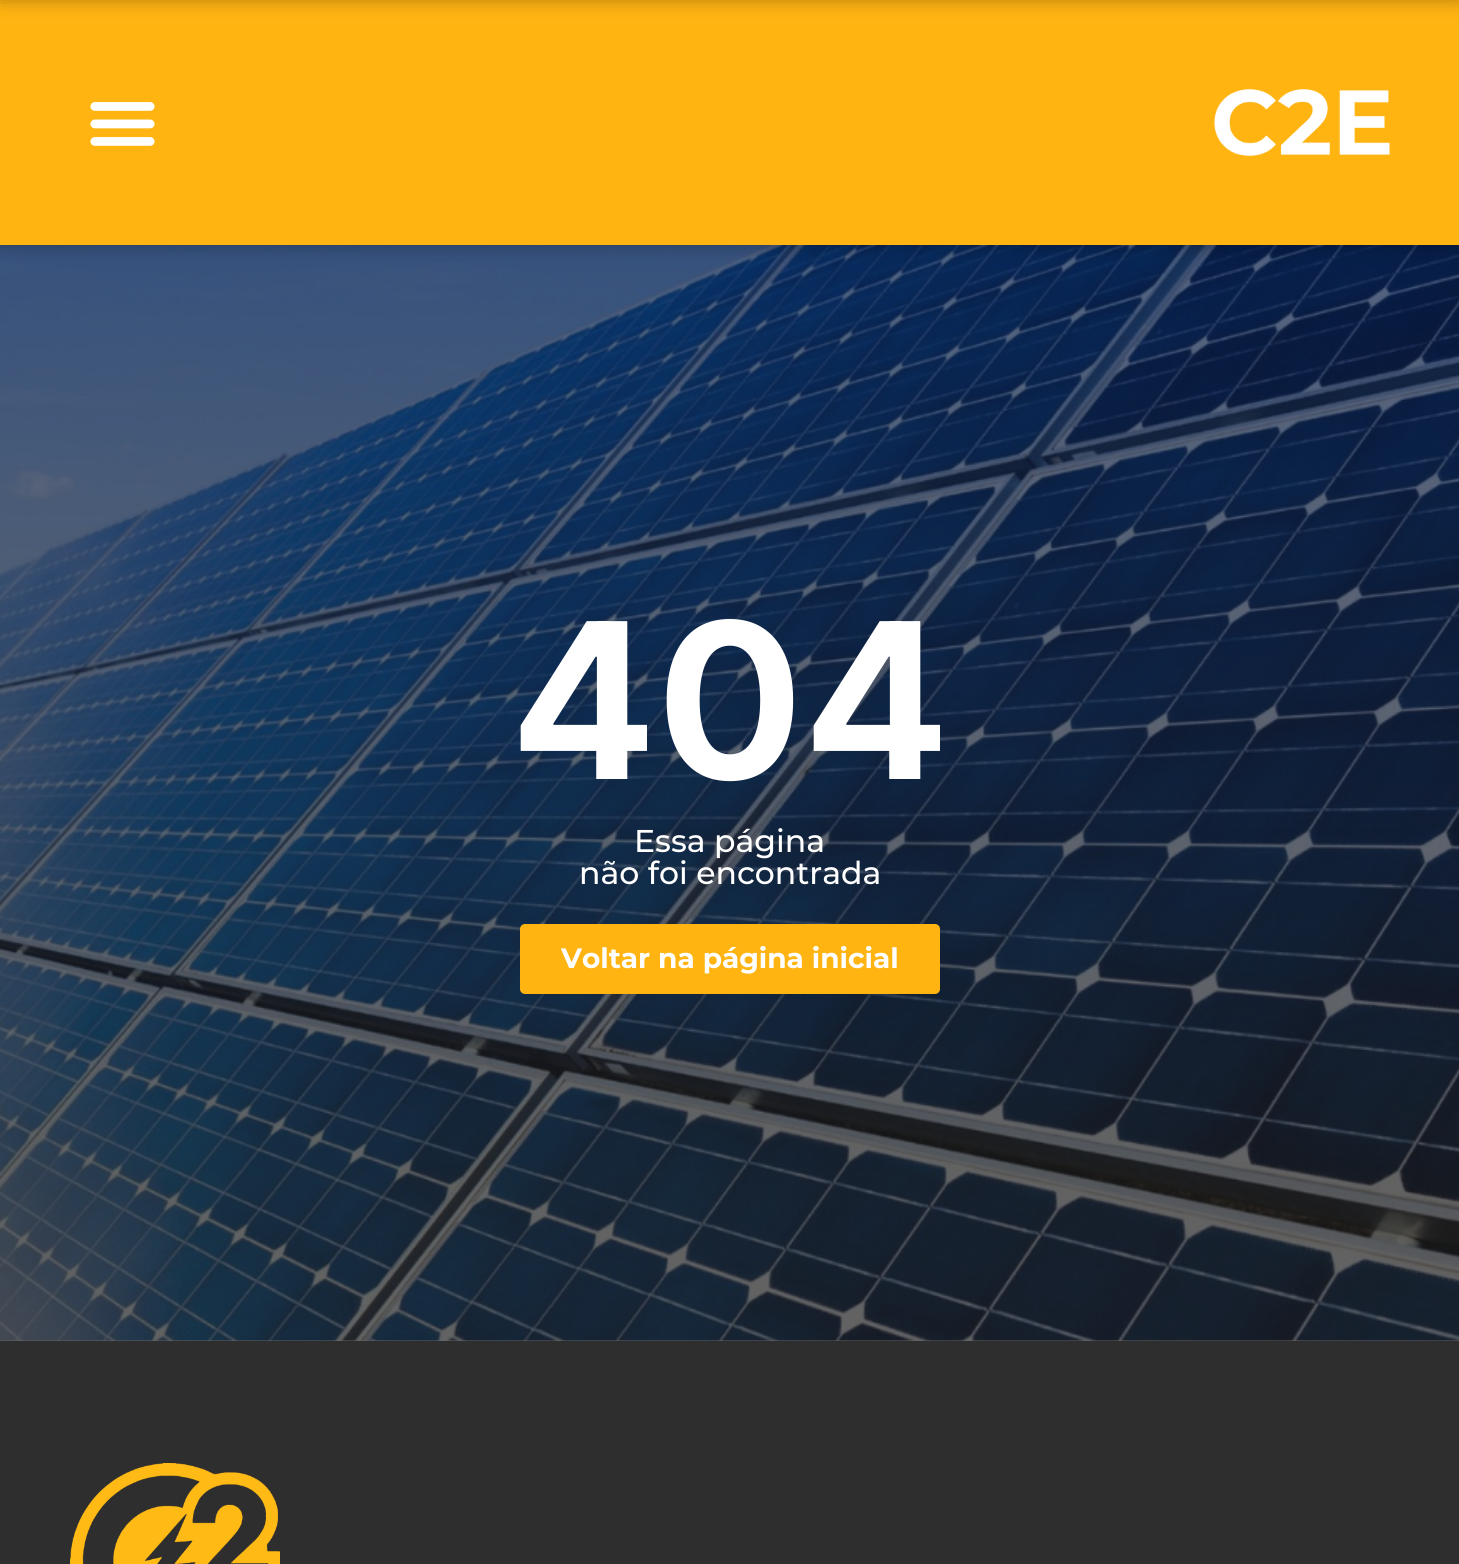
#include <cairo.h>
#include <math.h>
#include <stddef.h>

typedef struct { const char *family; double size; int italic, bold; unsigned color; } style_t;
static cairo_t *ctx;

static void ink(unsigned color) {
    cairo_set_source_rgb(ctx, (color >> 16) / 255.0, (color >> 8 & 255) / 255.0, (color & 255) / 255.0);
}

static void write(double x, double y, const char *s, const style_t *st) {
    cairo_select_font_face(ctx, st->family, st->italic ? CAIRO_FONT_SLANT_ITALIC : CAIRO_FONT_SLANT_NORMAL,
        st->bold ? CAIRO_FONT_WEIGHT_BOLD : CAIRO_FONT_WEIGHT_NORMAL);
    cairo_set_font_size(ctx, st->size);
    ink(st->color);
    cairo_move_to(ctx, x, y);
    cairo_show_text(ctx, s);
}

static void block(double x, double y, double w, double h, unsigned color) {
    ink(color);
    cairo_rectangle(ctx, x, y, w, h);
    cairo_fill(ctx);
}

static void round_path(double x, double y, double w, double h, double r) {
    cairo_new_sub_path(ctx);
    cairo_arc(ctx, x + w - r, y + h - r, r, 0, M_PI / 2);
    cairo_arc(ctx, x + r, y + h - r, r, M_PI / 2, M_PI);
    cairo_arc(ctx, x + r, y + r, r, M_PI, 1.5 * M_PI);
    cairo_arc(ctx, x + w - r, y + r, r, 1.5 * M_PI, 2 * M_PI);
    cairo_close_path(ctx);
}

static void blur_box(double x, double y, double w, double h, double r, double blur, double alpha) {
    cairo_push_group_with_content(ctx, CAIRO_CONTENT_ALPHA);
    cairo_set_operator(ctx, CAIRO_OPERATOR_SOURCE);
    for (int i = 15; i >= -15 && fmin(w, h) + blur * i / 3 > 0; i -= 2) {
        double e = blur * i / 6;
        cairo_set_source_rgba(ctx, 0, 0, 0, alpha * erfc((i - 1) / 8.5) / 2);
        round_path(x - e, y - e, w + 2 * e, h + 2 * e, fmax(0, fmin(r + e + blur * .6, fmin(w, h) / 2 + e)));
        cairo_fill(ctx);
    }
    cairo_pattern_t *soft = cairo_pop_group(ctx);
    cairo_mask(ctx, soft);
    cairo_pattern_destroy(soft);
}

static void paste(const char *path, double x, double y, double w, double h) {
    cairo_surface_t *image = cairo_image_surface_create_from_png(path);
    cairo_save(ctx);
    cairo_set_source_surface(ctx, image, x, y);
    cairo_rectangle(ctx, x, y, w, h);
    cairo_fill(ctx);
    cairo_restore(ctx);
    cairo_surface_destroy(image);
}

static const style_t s1 = {"Inter", 217, 0, 1, 0xffffff};
static const style_t s2 = {"Montserrat Medium", 31.5, 0, 0, 0xffffff};
static const style_t s3 = {"Montserrat", 28, 0, 1, 0xffffff};

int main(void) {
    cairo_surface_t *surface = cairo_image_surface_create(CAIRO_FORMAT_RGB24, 1459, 1564);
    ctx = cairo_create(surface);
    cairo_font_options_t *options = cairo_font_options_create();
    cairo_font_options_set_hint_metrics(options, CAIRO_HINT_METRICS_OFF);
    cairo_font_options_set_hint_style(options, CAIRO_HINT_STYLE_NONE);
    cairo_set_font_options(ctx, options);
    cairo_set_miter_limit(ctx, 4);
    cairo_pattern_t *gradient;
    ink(0xffffff);
    cairo_paint(ctx);
    paste("pic3.png", 0, 245, 1459, 1096);
    gradient = cairo_pattern_create_linear(730, 245, 730, 1341);
    cairo_pattern_add_color_stop_rgba(gradient, 0, 0.035, 0.122, 0.286, 0.69);
    cairo_pattern_add_color_stop_rgba(gradient, 0.86, 0.118, 0.118, 0.118, 0.69);
    cairo_set_source(ctx, gradient);
    cairo_pattern_destroy(gradient);
    cairo_rectangle(ctx, 0, 245, 1459, 1096);
    cairo_fill(ctx);
    ink(0x000000);
    blur_box(0, 0, 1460, 245, 0, 9, 0.29);
    block(0, 0, 1459, 245, 0xffb411);
    ink(0x000000);
    blur_box(0, -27, 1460, 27, 0, 9, 0.29);
    paste("pic1.png", 90, 102, 65, 44);
    paste("pic2.png", 1214, 89, 176, 67);
    write(510, 779, "404", &s1);
    write(634, 852, "Essa página", &s2);
    write(579, 884, "não foi encontrada", &s2);
    ink(0xffb411);
    round_path(520, 924, 420, 70, 5);
    cairo_fill(ctx);
    write(561, 968, "Voltar na página inicial", &s3);
    block(0, 1341, 1459, 223, 0x2e2e2e);
    paste("pic4.png", 70, 1463, 210, 101);
    cairo_surface_write_to_png(surface, "screenshot.png");
    cairo_font_options_destroy(options);
    cairo_destroy(ctx);
    cairo_surface_destroy(surface);
    return 0;
}
